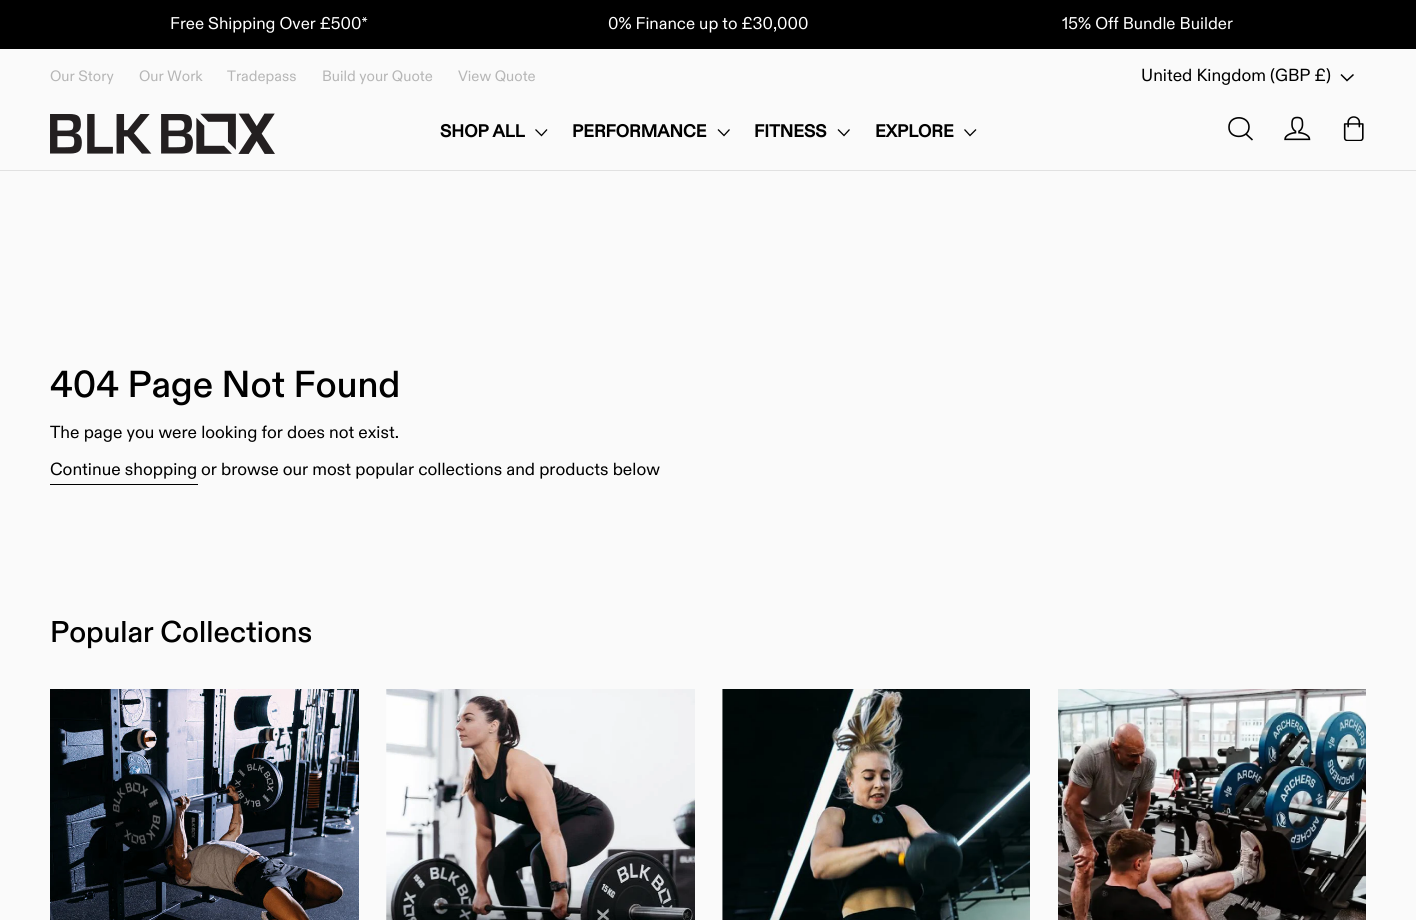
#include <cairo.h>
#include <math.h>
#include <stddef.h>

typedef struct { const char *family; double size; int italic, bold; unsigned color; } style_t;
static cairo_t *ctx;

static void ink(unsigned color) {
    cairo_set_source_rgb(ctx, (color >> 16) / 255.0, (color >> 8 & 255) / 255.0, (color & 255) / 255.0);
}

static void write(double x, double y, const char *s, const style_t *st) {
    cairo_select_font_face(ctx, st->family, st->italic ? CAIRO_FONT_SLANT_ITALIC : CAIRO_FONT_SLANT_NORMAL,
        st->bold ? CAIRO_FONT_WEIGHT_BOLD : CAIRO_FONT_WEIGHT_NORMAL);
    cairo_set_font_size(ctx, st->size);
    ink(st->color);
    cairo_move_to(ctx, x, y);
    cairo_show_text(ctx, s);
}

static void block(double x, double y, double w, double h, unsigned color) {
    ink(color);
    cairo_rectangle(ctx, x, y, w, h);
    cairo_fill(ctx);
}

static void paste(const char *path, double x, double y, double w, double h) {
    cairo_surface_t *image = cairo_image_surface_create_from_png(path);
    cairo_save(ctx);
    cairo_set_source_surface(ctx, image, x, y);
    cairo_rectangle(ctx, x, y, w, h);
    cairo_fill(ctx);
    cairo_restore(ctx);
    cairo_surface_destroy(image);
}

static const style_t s1 = {"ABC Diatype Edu", 17, 0, 0, 0xffffff};
static const style_t s2 = {"ABC Diatype Edu", 15, 0, 0, 0xb6b6b6};
static const style_t s3 = {"ABC Diatype Edu", 17.5, 0, 0, 0x000000};
static const style_t s4 = {"ABC Diatype Edu", 17.5, 0, 1, 0x000000};
static const style_t s5 = {"ABC Diatype Edu Medium", 37.5, 0, 0, 0x000000};
static const style_t s6 = {"ABC Diatype Edu Medium", 30, 0, 0, 0x000000};

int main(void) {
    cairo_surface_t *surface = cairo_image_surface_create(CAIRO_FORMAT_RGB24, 1416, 920);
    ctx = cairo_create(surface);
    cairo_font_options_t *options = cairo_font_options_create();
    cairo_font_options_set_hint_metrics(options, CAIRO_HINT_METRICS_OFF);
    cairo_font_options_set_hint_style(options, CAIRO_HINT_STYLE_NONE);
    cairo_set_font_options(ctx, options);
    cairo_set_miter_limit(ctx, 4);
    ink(0xfafafa);
    cairo_paint(ctx);
    block(0, 0, 1416, 49, 0x000000);
    write(170, 29, "Free Shipping Over £500*", &s1);
    write(608, 29, "0% Finance up to £30,000", &s1);
    write(1062, 29, "15% Off Bundle Builder", &s1);
    write(50, 81, "Our Story", &s2);
    write(139, 81, "Our Work", &s2);
    write(227, 81, "Tradepass", &s2);
    write(322, 81, "Build your Quote", &s2);
    write(458, 81, "View Quote", &s2);
    write(1141, 81, "United Kingdom (GBP £)", &s3);
    cairo_new_path(ctx);
    cairo_move_to(ctx, 1341, 74.5);
    cairo_line_to(ctx, 1347, 80.5);
    cairo_line_to(ctx, 1353.5, 74.5);
    cairo_set_line_width(ctx, 1.5);
    cairo_stroke(ctx);
    block(0, 170, 1416, 1, 0xe1e1e1);
    paste("pic1.png", 50, 113, 225, 41);
    write(440, 137, "SHOP ALL", &s4);
    cairo_new_path(ctx);
    cairo_move_to(ctx, 535.5, 129.5);
    cairo_line_to(ctx, 541.5, 135.5);
    cairo_line_to(ctx, 547, 129.5);
    cairo_set_line_width(ctx, 1.3);
    cairo_stroke(ctx);
    write(572, 137, "PERFORMANCE", &s4);
    cairo_new_path(ctx);
    cairo_move_to(ctx, 718, 129.5);
    cairo_line_to(ctx, 724, 135.5);
    cairo_line_to(ctx, 729.5, 129.5);
    cairo_stroke(ctx);
    write(754, 137, "FITNESS", &s4);
    cairo_new_path(ctx);
    cairo_move_to(ctx, 838, 129.5);
    cairo_line_to(ctx, 844, 135.5);
    cairo_line_to(ctx, 849.5, 129.5);
    cairo_stroke(ctx);
    write(875, 137, "EXPLORE", &s4);
    cairo_new_path(ctx);
    cairo_move_to(ctx, 964.5, 129.5);
    cairo_line_to(ctx, 970, 135.5);
    cairo_line_to(ctx, 976, 129.5);
    cairo_stroke(ctx);
    cairo_new_path(ctx);
    cairo_move_to(ctx, 1252.5, 140);
    cairo_line_to(ctx, 1246, 134);
    cairo_move_to(ctx, 1249, 127);
    cairo_curve_to(ctx, 1249, 139.5, 1228.5, 139.5, 1229, 127);
    cairo_curve_to(ctx, 1229, 114.5, 1249, 115, 1249, 127);
    cairo_close_path(ctx);
    cairo_set_line_width(ctx, 1.6);
    cairo_stroke(ctx);
    paste("pic2.png", 1284, 116, 27, 25);
    paste("pic3.png", 1343, 116, 21, 25);
    write(50, 397, "404 Page Not Found", &s5);
    write(50, 438, "The page you were looking for does not exist.", &s3);
    block(50, 484, 148, 1, 0x000000);
    write(50, 475, "Continue shopping", &s3);
    write(201, 475, "or browse our most popular collections and products below", &s3);
    write(50, 642, "Popular Collections", &s6);
    paste("pic4.png", 50, 689, 309, 231);
    paste("pic5.png", 386, 689, 309, 231);
    paste("pic6.png", 722, 689, 308, 231);
    paste("pic7.png", 1058, 689, 308, 231);
    cairo_surface_write_to_png(surface, "screenshot.png");
    cairo_font_options_destroy(options);
    cairo_destroy(ctx);
    cairo_surface_destroy(surface);
    return 0;
}
